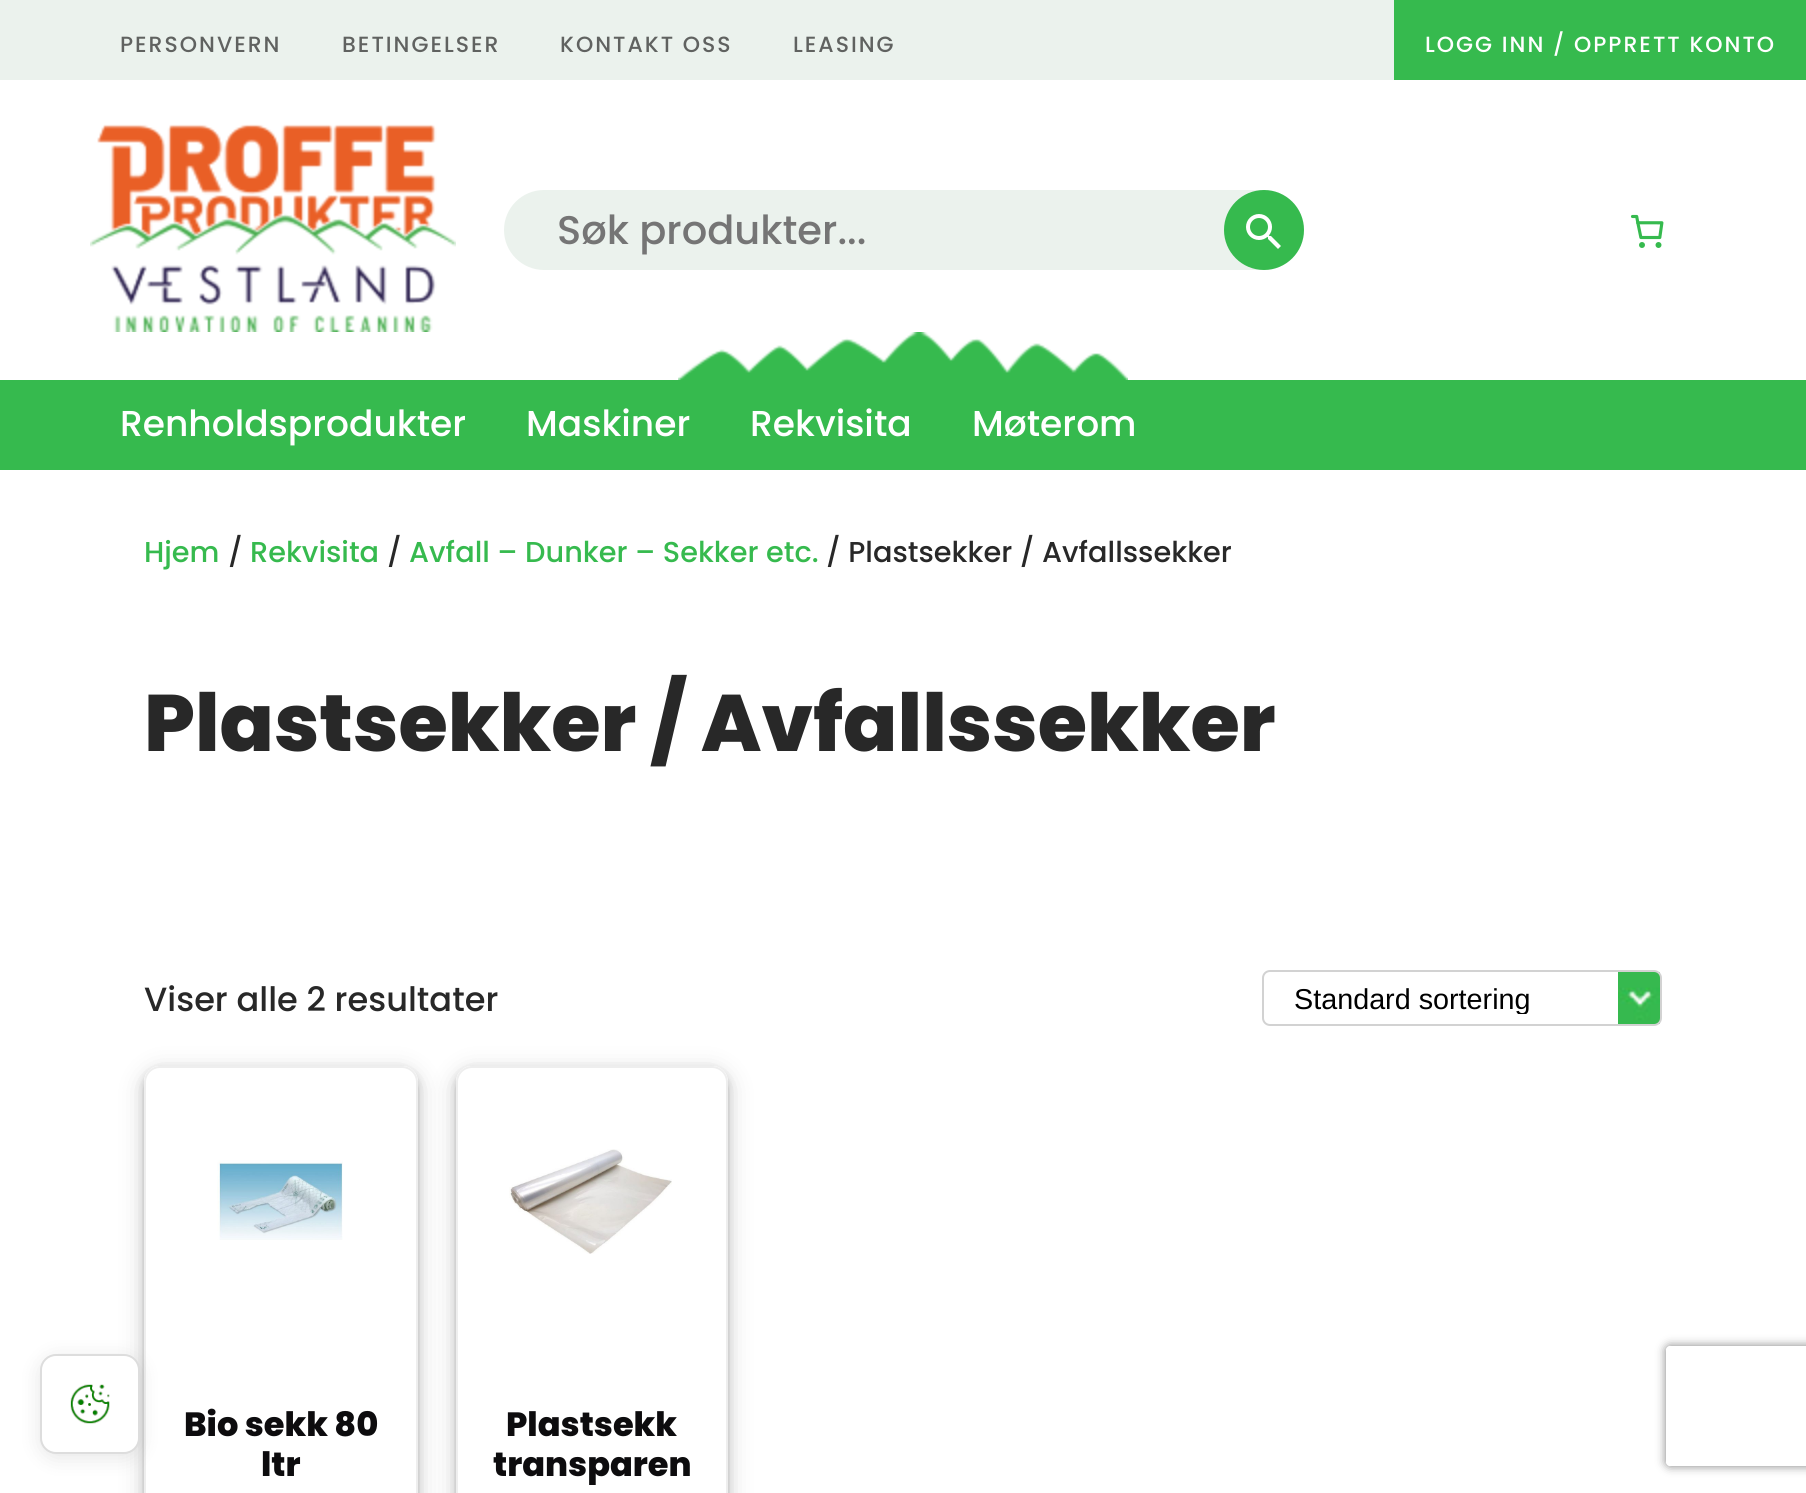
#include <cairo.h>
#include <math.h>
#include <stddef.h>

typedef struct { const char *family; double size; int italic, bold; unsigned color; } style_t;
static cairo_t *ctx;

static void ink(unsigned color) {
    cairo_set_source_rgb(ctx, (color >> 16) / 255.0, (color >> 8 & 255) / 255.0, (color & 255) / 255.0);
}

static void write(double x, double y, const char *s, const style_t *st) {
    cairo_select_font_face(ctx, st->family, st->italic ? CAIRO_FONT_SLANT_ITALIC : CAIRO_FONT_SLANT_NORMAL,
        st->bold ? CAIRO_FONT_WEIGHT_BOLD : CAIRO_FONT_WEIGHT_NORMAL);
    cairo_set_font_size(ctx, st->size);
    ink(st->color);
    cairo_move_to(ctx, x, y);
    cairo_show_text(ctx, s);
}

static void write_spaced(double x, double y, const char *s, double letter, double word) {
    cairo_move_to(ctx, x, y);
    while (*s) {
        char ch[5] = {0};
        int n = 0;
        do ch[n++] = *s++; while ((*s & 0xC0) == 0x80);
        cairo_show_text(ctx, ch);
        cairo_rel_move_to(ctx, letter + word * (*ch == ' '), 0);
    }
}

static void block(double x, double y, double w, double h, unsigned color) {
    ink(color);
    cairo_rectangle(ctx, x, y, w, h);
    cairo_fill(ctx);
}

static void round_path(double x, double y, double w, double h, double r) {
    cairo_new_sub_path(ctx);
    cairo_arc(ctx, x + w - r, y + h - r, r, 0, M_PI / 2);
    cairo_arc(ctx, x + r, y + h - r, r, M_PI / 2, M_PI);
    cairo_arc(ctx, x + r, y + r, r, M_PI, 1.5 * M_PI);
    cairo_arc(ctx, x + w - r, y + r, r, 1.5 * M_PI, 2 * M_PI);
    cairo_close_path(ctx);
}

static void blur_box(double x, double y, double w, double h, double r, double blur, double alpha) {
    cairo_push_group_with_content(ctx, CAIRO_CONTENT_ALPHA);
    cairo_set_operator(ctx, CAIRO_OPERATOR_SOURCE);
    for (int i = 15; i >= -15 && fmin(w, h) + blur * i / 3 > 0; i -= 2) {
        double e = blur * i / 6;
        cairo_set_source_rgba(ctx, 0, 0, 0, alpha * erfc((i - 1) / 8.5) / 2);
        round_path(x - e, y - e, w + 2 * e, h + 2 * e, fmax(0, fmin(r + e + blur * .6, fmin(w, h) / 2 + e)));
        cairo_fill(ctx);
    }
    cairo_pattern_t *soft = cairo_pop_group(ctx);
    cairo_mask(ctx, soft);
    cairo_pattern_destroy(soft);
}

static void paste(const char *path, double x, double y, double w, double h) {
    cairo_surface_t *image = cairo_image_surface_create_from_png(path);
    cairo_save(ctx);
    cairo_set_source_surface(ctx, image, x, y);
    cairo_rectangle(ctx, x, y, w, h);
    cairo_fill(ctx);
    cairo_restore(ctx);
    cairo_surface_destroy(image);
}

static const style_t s1 = {"Poppins Medium", 40, 0, 0, 0x757575};
static const style_t s2 = {"Poppins Medium", 36, 0, 0, 0xffffff};
static const style_t s3 = {"Poppins Medium", 28.75, 0, 0, 0x36ba4e};
static const style_t s4 = {"Poppins Medium", 28.75, 0, 0, 0x282828};
static const style_t s5 = {"Poppins ExtraBold", 80, 0, 0, 0x282828};
static const style_t s6 = {"Poppins Medium", 33.6, 0, 0, 0x282828};
static const style_t s7 = {"Liberation Sans", 28.75, 0, 0, 0x000000};
static const style_t s8 = {"Poppins ExtraBold", 33.6, 0, 0, 0x0d0c0e};

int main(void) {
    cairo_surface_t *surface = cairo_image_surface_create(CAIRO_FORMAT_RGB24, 1806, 1493);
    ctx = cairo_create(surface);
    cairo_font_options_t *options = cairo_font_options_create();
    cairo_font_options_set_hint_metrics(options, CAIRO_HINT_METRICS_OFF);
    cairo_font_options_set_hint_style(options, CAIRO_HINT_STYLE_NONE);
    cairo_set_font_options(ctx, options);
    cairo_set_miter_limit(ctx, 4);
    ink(0xffffff);
    cairo_paint(ctx);
    block(0, 0, 1394, 80, 0xebf2ed);
    cairo_select_font_face(ctx, "Poppins Medium", CAIRO_FONT_SLANT_NORMAL, CAIRO_FONT_WEIGHT_NORMAL);
    cairo_set_font_size(ctx, 22);
    ink(0x606260);
    write_spaced(120, 52, "PERSONVERN", 2, 0);
    write_spaced(342, 52, "BETINGELSER", 2, 0);
    write_spaced(560, 52, "KONTAKT OSS", 2, 0);
    write_spaced(793, 52, "LEASING", 2, 0);
    block(1394, 0, 412, 80, 0x36ba4e);
    ink(0xffffff);
    write_spaced(1425, 52, "LOGG INN / OPPRETT KONTO", 2, 0);
    paste("pic1.png", 90, 124, 366, 208);
    ink(0xebf2ed);
    round_path(506, 192, 796, 76, 38);
    cairo_fill_preserve(ctx);
    cairo_set_line_width(ctx, 4);
    cairo_stroke(ctx);
    write(557, 244, "Søk produkter...", &s1);
    ink(0x36ba4e);
    cairo_new_path(ctx);
    cairo_arc(ctx, 1264, 230, 38, 0, 2 * M_PI);
    cairo_fill_preserve(ctx);
    cairo_stroke(ctx);
    paste("pic2.png", 1246, 214, 35, 35);
    paste("pic3.png", 1630, 214, 34, 34);
    paste("pic4.png", 678, 332, 450, 48);
    block(0, 380, 1806, 90, 0x36ba4e);
    write(120, 436, "Renholdsprodukter", &s2);
    write(526, 436, "Maskiner", &s2);
    write(750, 436, "Rekvisita", &s2);
    write(972, 436, "Møterom", &s2);
    cairo_save(ctx);
    cairo_set_fill_rule(ctx, CAIRO_FILL_RULE_EVEN_ODD);
    cairo_new_path(ctx);
    cairo_move_to(ctx, 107, 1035);
    cairo_line_to(ctx, 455, 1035);
    cairo_line_to(ctx, 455, 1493);
    cairo_line_to(ctx, 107, 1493);
    cairo_close_path(ctx);
    cairo_move_to(ctx, 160, 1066);
    cairo_line_to(ctx, 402, 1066);
    cairo_curve_to(ctx, 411, 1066, 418, 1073, 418, 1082);
    cairo_line_to(ctx, 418, 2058);
    cairo_curve_to(ctx, 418, 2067, 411, 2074, 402, 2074);
    cairo_line_to(ctx, 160, 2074);
    cairo_curve_to(ctx, 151, 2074, 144, 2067, 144, 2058);
    cairo_line_to(ctx, 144, 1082);
    cairo_curve_to(ctx, 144, 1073, 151, 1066, 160, 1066);
    cairo_close_path(ctx);
    cairo_clip(ctx);
    ink(0x000000);
    blur_box(144, 1072, 274, 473, 16, 12, 0.19);
    cairo_restore(ctx);
    cairo_save(ctx);
    cairo_set_fill_rule(ctx, CAIRO_FILL_RULE_EVEN_ODD);
    cairo_new_path(ctx);
    cairo_move_to(ctx, 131, 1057);
    cairo_line_to(ctx, 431, 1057);
    cairo_line_to(ctx, 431, 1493);
    cairo_line_to(ctx, 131, 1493);
    cairo_close_path(ctx);
    cairo_move_to(ctx, 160, 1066);
    cairo_line_to(ctx, 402, 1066);
    cairo_curve_to(ctx, 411, 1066, 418, 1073, 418, 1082);
    cairo_line_to(ctx, 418, 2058);
    cairo_curve_to(ctx, 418, 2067, 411, 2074, 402, 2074);
    cairo_line_to(ctx, 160, 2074);
    cairo_curve_to(ctx, 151, 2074, 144, 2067, 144, 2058);
    cairo_line_to(ctx, 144, 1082);
    cairo_curve_to(ctx, 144, 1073, 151, 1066, 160, 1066);
    cairo_close_path(ctx);
    cairo_clip(ctx);
    ink(0x000000);
    blur_box(144, 1070, 274, 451, 16, 4, 0.2);
    cairo_restore(ctx);
    round_path(145, 1067, 272, 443, 15);
    ink(0xeeeeee);
    cairo_set_line_width(ctx, 2);
    cairo_stroke(ctx);
    ink(0x000000);
    blur_box(40, 1358, 100, 100, 16, 10, 0.1);
    ink(0xffffff);
    round_path(41, 1355, 98, 98, 15);
    cairo_fill_preserve(ctx);
    ink(0xdddddd);
    cairo_stroke(ctx);
    paste("pic5.png", 70, 1384, 40, 40);
    write(144, 562, "Hjem", &s3);
    write(228, 562, "/", &s4);
    write(250, 562, "Rekvisita", &s3);
    write(387, 562, "/", &s4);
    write(409, 562, "Avfall – Dunker – Sekker etc.", &s3);
    write(826, 562, "/ Plastsekker / Avfallssekker", &s4);
    write(144, 751, "Plastsekker / Avfallssekker", &s5);
    write(144, 1011, "Viser alle 2 resultater", &s6);
    paste("pic6.png", 1618, 972, 42, 52);
    round_path(1263, 971, 398, 54, 7);
    ink(0xd2d2d2);
    cairo_stroke(ctx);
    cairo_save(ctx);
    cairo_rectangle(ctx, 1294, 982, 336, 32);
    cairo_clip(ctx);
    write(1294, 1009, "Standard sortering", &s7);
    cairo_restore(ctx);
    paste("pic7.png", 217, 1160, 126, 80);
    write(184, 1436, "Bio sekk 80", &s8);
    write(261, 1476, "ltr", &s8);
    cairo_save(ctx);
    cairo_set_fill_rule(ctx, CAIRO_FILL_RULE_EVEN_ODD);
    cairo_new_path(ctx);
    cairo_move_to(ctx, 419, 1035);
    cairo_line_to(ctx, 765, 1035);
    cairo_line_to(ctx, 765, 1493);
    cairo_line_to(ctx, 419, 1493);
    cairo_close_path(ctx);
    cairo_move_to(ctx, 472, 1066);
    cairo_line_to(ctx, 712, 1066);
    cairo_curve_to(ctx, 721, 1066, 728, 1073, 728, 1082);
    cairo_line_to(ctx, 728, 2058);
    cairo_curve_to(ctx, 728, 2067, 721, 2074, 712, 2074);
    cairo_line_to(ctx, 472, 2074);
    cairo_curve_to(ctx, 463, 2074, 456, 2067, 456, 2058);
    cairo_line_to(ctx, 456, 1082);
    cairo_curve_to(ctx, 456, 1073, 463, 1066, 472, 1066);
    cairo_close_path(ctx);
    cairo_clip(ctx);
    ink(0x000000);
    blur_box(456, 1072, 272, 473, 16, 12, 0.19);
    cairo_restore(ctx);
    cairo_save(ctx);
    cairo_set_fill_rule(ctx, CAIRO_FILL_RULE_EVEN_ODD);
    cairo_new_path(ctx);
    cairo_move_to(ctx, 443, 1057);
    cairo_line_to(ctx, 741, 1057);
    cairo_line_to(ctx, 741, 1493);
    cairo_line_to(ctx, 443, 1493);
    cairo_close_path(ctx);
    cairo_move_to(ctx, 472, 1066);
    cairo_line_to(ctx, 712, 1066);
    cairo_curve_to(ctx, 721, 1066, 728, 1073, 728, 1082);
    cairo_line_to(ctx, 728, 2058);
    cairo_curve_to(ctx, 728, 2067, 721, 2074, 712, 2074);
    cairo_line_to(ctx, 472, 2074);
    cairo_curve_to(ctx, 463, 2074, 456, 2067, 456, 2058);
    cairo_line_to(ctx, 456, 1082);
    cairo_curve_to(ctx, 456, 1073, 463, 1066, 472, 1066);
    cairo_close_path(ctx);
    cairo_clip(ctx);
    ink(0x000000);
    blur_box(456, 1070, 272, 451, 16, 4, 0.2);
    cairo_restore(ctx);
    round_path(457, 1067, 270, 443, 15);
    ink(0xeeeeee);
    cairo_stroke(ctx);
    paste("pic8.png", 509, 1149, 163, 105);
    write(506, 1436, "Plastsekk", &s8);
    write(493, 1476, "transparen", &s8);
    cairo_save(ctx);
    cairo_set_fill_rule(ctx, CAIRO_FILL_RULE_EVEN_ODD);
    cairo_new_path(ctx);
    cairo_move_to(ctx, 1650, 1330);
    cairo_line_to(ctx, 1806, 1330);
    cairo_line_to(ctx, 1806, 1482);
    cairo_line_to(ctx, 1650, 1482);
    cairo_close_path(ctx);
    cairo_move_to(ctx, 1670, 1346);
    cairo_line_to(ctx, 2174, 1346);
    cairo_curve_to(ctx, 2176, 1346, 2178, 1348, 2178, 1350);
    cairo_line_to(ctx, 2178, 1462);
    cairo_curve_to(ctx, 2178, 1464, 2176, 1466, 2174, 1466);
    cairo_line_to(ctx, 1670, 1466);
    cairo_curve_to(ctx, 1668, 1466, 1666, 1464, 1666, 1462);
    cairo_line_to(ctx, 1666, 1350);
    cairo_curve_to(ctx, 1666, 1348, 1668, 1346, 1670, 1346);
    cairo_close_path(ctx);
    cairo_clip(ctx);
    ink(0x808080);
    blur_box(1666, 1346, 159, 120, 4, 5, 1);
    cairo_restore(ctx);
    cairo_surface_write_to_png(surface, "screenshot.png");
    cairo_font_options_destroy(options);
    cairo_destroy(ctx);
    cairo_surface_destroy(surface);
    return 0;
}
